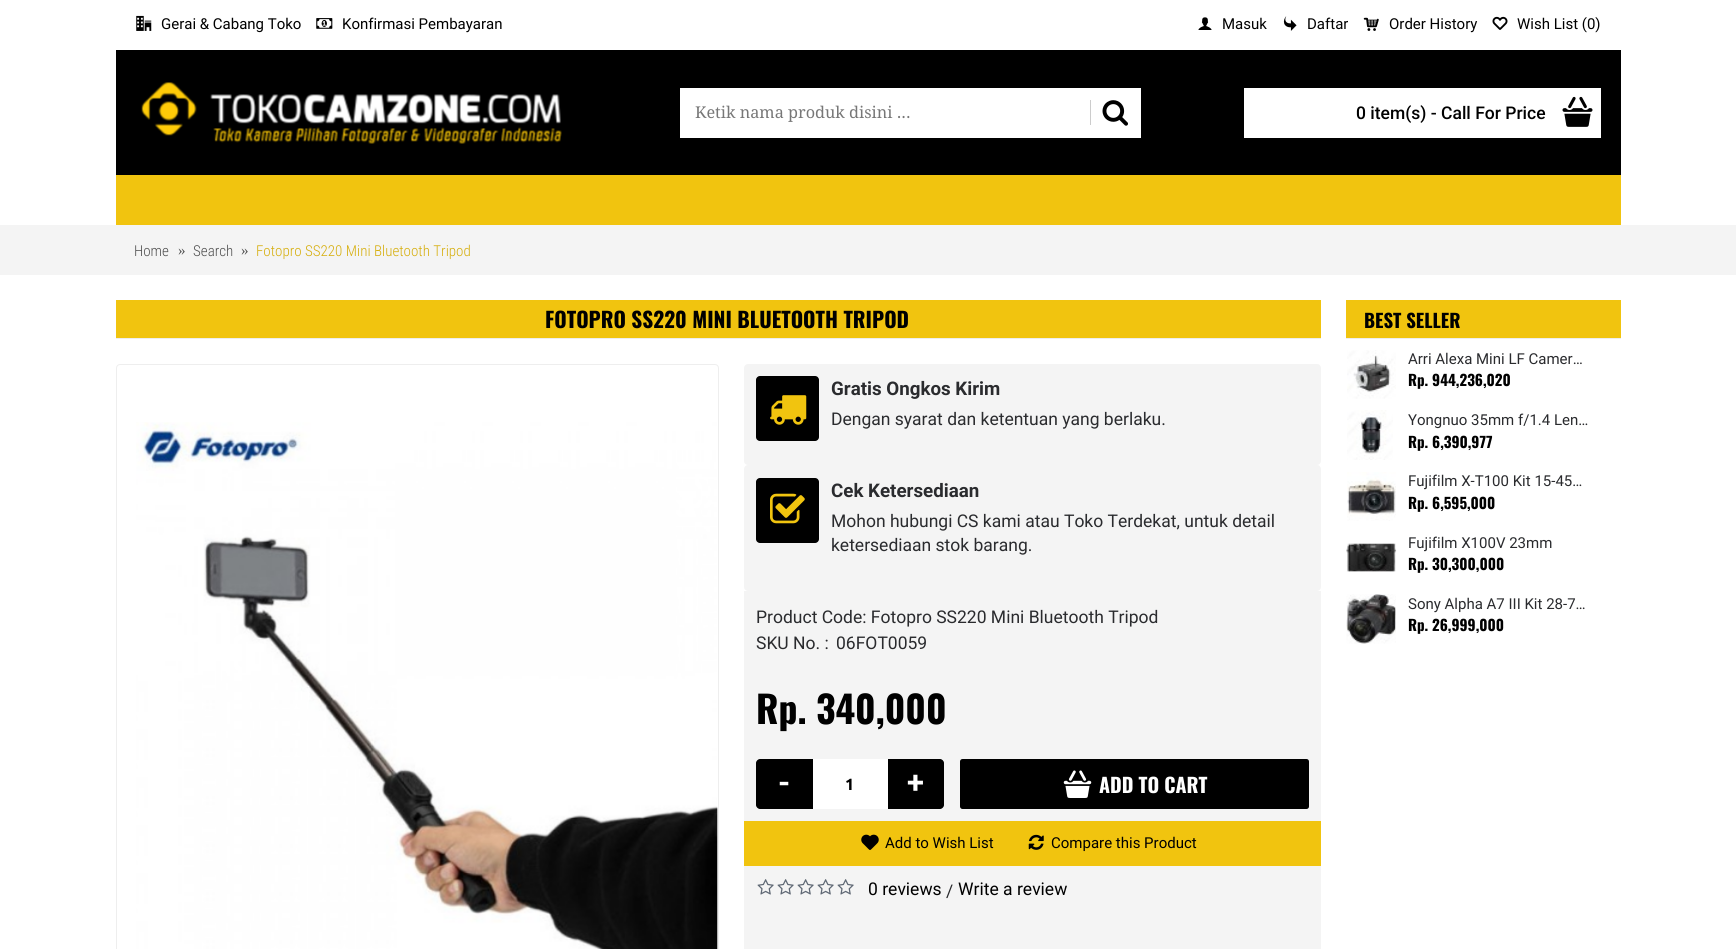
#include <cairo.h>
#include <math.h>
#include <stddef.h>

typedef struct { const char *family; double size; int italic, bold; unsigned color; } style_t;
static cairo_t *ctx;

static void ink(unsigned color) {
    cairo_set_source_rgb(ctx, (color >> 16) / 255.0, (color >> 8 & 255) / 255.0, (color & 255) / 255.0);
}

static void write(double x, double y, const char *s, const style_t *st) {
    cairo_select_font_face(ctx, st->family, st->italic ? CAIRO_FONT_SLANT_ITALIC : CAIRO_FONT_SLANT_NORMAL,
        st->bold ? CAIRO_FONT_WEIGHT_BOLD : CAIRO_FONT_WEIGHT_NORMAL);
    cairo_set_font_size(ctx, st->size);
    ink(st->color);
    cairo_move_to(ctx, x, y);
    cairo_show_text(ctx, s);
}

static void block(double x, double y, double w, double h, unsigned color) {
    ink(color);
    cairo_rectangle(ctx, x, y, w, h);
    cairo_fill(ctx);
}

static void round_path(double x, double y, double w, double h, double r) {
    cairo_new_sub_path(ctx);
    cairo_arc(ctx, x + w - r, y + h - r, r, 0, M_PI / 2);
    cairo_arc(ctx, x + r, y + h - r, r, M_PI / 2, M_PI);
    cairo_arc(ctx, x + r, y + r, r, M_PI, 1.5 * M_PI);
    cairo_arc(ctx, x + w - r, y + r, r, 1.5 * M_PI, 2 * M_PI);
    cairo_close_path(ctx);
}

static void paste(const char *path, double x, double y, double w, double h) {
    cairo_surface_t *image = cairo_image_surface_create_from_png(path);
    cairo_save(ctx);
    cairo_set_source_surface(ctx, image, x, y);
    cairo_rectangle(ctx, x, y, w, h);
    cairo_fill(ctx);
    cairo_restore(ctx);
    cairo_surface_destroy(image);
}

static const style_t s1 = {"Roboto", 15, 0, 0, 0x000000};
static const style_t s2 = {"Droid Serif", 16.25, 0, 0, 0x777777};
static const style_t s3 = {"Roboto Medium", 17.5, 0, 0, 0x000000};
static const style_t s4 = {"Roboto Condensed Light", 15, 0, 0, 0x505050};
static const style_t s5 = {"Liberation Serif", 15, 0, 0, 0x505050};
static const style_t s6 = {"Roboto Condensed Light", 15, 0, 0, 0xd6ae0c};
static const style_t s7 = {"Oswald", 21.25, 0, 1, 0x000000};
static const style_t s8 = {"Roboto", 18.75, 0, 1, 0x2a2b2e};
static const style_t s9 = {"Roboto", 17.5, 0, 0, 0x2a2b2e};
static const style_t s10 = {"Oswald", 37.5, 0, 1, 0x000000};
static const style_t s11 = {"Roboto", 31, 0, 1, 0xffffff};
static const style_t s12 = {"Ubuntu", 16.25, 0, 1, 0x000000};
static const style_t s13 = {"Oswald", 20, 0, 1, 0xffffff};
static const style_t s14 = {"Roboto", 17.5, 0, 0, 0x000000};
static const style_t s15 = {"Oswald", 18.75, 0, 1, 0x000000};
static const style_t s16 = {"Roboto", 15, 0, 0, 0x2a2b2e};
static const style_t s17 = {"Oswald", 15, 0, 1, 0x000000};

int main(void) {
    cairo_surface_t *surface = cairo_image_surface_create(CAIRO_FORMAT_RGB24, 1736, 949);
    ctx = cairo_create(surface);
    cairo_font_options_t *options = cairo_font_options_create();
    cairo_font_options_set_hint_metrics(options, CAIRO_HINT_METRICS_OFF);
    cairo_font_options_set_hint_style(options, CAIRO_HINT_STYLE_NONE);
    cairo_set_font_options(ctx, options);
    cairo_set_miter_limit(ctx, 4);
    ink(0xffffff);
    cairo_paint(ctx);
    block(116, 50, 1505, 125, 0x000000);
    paste("pic1.png", 136, 15, 16, 16);
    write(161, 29, "Gerai & Cabang Toko", &s1);
    paste("pic2.png", 316, 18, 17, 11);
    write(342, 29, "Konfirmasi Pembayaran", &s1);
    paste("pic3.png", 1198, 17, 14, 13);
    write(1222, 29, "Masuk", &s1);
    paste("pic4.png", 1283, 16, 14, 15);
    write(1307, 29, "Daftar", &s1);
    paste("pic5.png", 1363, 17, 16, 14);
    write(1389, 29, "Order History", &s1);
    paste("pic6.png", 1492, 16, 16, 14);
    write(1517, 29, "Wish List (0)", &s1);
    paste("pic7.png", 141, 82, 421, 62);
    block(680, 88, 461, 50, 0xffffff);
    write(695, 118, "Ketik nama produk disini ...", &s2);
    block(1090, 100, 1, 25, 0xcccccc);
    paste("pic8.png", 1102, 100, 26, 26);
    block(1244, 88, 357, 50, 0xffffff);
    write(1356, 119, "0 item(s) - Call For Price", &s3);
    paste("pic9.png", 1562, 96, 31, 31);
    block(116, 175, 1505, 50, 0xf1c40f);
    block(0, 225, 1736, 50, 0xf4f4f4);
    write(134, 256, "Home", &s4);
    write(178, 255, "»", &s5);
    write(193, 256, "Search", &s4);
    write(241, 255, "»", &s5);
    write(256, 256, "Fotopro SS220 Mini Bluetooth Tripod", &s6);
    block(116, 300, 1205, 38, 0xf1c40f);
    block(116, 338, 1205, 1, 0xeeeeee);
    write(545, 328, "FOTOPRO SS220 MINI BLUETOOTH TRIPOD", &s7);
    round_path(116.5, 364.5, 602, 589, 3.5);
    ink(0xeeeeee);
    cairo_set_line_width(ctx, 1);
    cairo_stroke(ctx);
    paste("pic10.png", 136, 422, 582, 527);
    ink(0xf4f4f4);
    round_path(744, 364, 577, 101, 4);
    cairo_fill(ctx);
    ink(0x000000);
    round_path(756, 376, 63, 65, 4);
    cairo_fill(ctx);
    paste("pic11.png", 770, 395, 37, 30);
    write(831, 395, "Gratis Ongkos Kirim", &s8);
    write(831, 425, "Dengan syarat dan ketentuan yang berlaku.", &s9);
    ink(0xf4f4f4);
    round_path(744, 465, 577, 126, 4);
    cairo_fill(ctx);
    ink(0x000000);
    round_path(756, 478, 63, 65, 4);
    cairo_fill(ctx);
    paste("pic12.png", 770, 493, 35, 31);
    write(831, 497, "Cek Ketersediaan", &s8);
    write(831, 527, "Mohon hubungi CS kami atau Toko Terdekat, untuk detail", &s9);
    write(831, 551, "ketersediaan stok barang.", &s9);
    block(744, 591, 577, 230, 0xf4f4f4);
    write(756, 623, "Product Code: Fotopro SS220 Mini Bluetooth Tripod", &s9);
    write(756, 649, "SKU No. :", &s9);
    write(836, 649, "06FOT0059", &s9);
    write(756, 724, "Rp. 340,000", &s10);
    cairo_new_path(ctx);
    cairo_move_to(ctx, 760, 759);
    cairo_line_to(ctx, 813, 759);
    cairo_line_to(ctx, 813, 809);
    cairo_line_to(ctx, 760, 809);
    cairo_curve_to(ctx, 758, 809, 756, 807, 756, 805);
    cairo_line_to(ctx, 756, 763);
    cairo_curve_to(ctx, 756, 761, 758, 759, 760, 759);
    cairo_close_path(ctx);
    cairo_fill(ctx);
    write(778, 793, "-", &s11);
    block(813, 759, 75, 50, 0xffffff);
    write(845, 790, "1", &s12);
    cairo_new_path(ctx);
    cairo_move_to(ctx, 888, 759);
    cairo_line_to(ctx, 940, 759);
    cairo_curve_to(ctx, 942, 759, 944, 761, 944, 763);
    cairo_line_to(ctx, 944, 805);
    cairo_curve_to(ctx, 944, 807, 942, 809, 940, 809);
    cairo_line_to(ctx, 888, 809);
    cairo_close_path(ctx);
    cairo_fill(ctx);
    write(907, 793, "+", &s11);
    ink(0x000000);
    round_path(960, 759, 349, 50, 2.5);
    cairo_fill(ctx);
    paste("pic13.png", 1063, 770, 29, 28);
    write(1099, 793, "ADD TO CART", &s13);
    block(744, 821, 577, 45, 0xf1c40f);
    paste("pic14.png", 861, 834, 18, 16);
    write(885, 848, "Add to Wish List", &s1);
    paste("pic15.png", 1028, 834, 16, 16);
    write(1051, 848, "Compare this Product", &s1);
    block(744, 866, 577, 83, 0xf4f4f4);
    paste("pic16.png", 757, 879, 17, 16);
    paste("pic16.png", 777, 879, 17, 16);
    paste("pic16.png", 797, 879, 17, 16);
    paste("pic16.png", 817, 879, 17, 16);
    paste("pic16.png", 837, 879, 17, 16);
    write(868, 895, "0 reviews", &s14);
    write(946, 897, "/", &s9);
    write(958, 895, "Write a review", &s14);
    block(1346, 300, 275, 38, 0xf1c40f);
    block(1346, 338, 275, 1, 0xeeeeee);
    write(1364, 328, "BEST SELLER", &s15);
    paste("pic17.png", 1347, 350, 49, 49);
    write(1408, 364, "Arri Alexa Mini LF Camer…", &s16);
    write(1408, 386, "Rp. 944,236,020", &s17);
    paste("pic18.png", 1347, 410, 46, 50);
    write(1408, 425, "Yongnuo 35mm f/1.4 Len…", &s16);
    write(1408, 448, "Rp. 6,390,977", &s17);
    paste("pic19.png", 1347, 472, 49, 49);
    write(1408, 486, "Fujifilm X-T100 Kit 15-45…", &s16);
    write(1408, 509, "Rp. 6,595,000", &s17);
    paste("pic20.png", 1346, 543, 51, 29);
    write(1408, 548, "Fujifilm X100V 23mm", &s16);
    write(1408, 570, "Rp. 30,300,000", &s17);
    paste("pic21.png", 1346, 594, 50, 50);
    write(1408, 609, "Sony Alpha A7 III Kit 28-7…", &s16);
    write(1408, 631, "Rp. 26,999,000", &s17);
    cairo_surface_write_to_png(surface, "screenshot.png");
    cairo_font_options_destroy(options);
    cairo_destroy(ctx);
    cairo_surface_destroy(surface);
    return 0;
}
